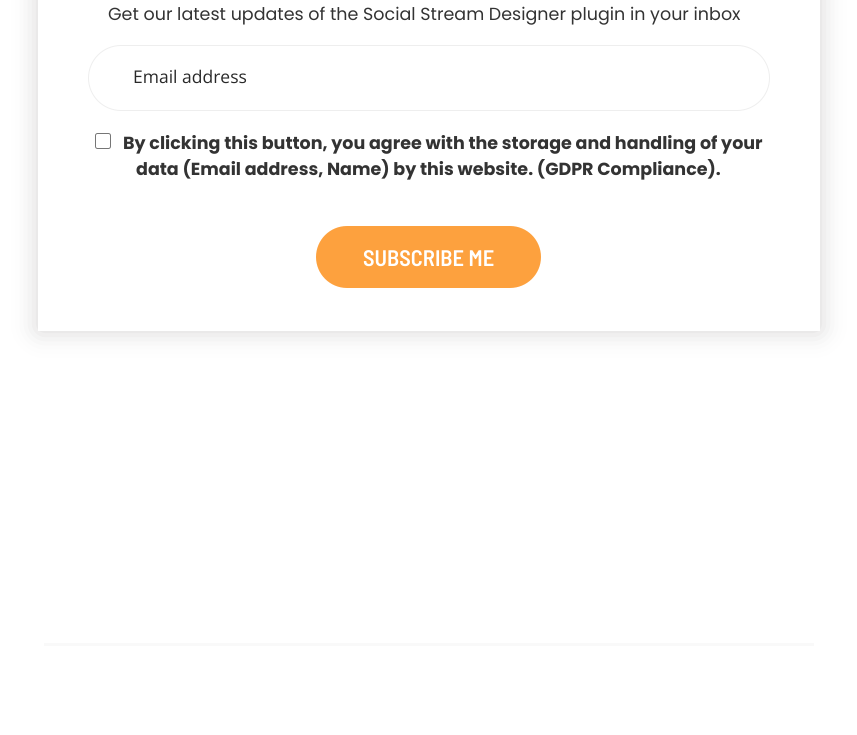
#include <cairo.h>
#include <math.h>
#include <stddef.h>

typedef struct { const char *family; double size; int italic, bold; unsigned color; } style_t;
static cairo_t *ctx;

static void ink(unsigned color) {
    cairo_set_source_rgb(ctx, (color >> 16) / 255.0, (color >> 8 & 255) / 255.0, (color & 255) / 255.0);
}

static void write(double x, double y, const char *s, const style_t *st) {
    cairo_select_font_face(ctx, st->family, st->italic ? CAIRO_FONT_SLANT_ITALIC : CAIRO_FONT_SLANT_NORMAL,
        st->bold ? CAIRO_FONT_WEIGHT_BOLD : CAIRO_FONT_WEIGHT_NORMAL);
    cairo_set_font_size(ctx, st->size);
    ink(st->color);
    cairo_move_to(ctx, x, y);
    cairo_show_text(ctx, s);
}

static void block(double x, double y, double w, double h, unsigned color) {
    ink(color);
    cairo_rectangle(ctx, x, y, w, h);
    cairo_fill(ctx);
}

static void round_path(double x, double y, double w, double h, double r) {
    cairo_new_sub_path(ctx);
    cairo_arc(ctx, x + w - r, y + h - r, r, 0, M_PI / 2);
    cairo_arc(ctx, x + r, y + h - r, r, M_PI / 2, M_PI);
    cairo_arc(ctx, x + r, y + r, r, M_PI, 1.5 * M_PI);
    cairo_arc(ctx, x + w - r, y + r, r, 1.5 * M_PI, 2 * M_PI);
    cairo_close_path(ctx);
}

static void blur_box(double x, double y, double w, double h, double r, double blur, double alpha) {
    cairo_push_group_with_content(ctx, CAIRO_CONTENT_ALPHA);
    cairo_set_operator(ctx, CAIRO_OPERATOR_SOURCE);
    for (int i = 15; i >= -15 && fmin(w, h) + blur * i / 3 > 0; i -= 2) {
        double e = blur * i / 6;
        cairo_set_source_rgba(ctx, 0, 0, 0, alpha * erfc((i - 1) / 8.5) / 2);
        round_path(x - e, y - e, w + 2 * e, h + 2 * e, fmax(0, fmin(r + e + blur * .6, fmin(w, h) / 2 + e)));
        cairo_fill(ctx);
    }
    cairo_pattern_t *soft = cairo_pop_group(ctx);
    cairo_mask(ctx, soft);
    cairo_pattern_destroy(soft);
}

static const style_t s1 = {"Poppins", 17.5, 0, 0, 0x333333};
static const style_t s2 = {"Open Sans", 17.5, 0, 0, 0x292929};
static const style_t s3 = {"Poppins", 17.5, 0, 1, 0x333333};
static const style_t s4 = {"Barlow Semi Condensed SemiBold", 22.5, 0, 0, 0xffffff};

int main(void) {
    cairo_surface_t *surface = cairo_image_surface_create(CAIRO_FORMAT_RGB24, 857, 735);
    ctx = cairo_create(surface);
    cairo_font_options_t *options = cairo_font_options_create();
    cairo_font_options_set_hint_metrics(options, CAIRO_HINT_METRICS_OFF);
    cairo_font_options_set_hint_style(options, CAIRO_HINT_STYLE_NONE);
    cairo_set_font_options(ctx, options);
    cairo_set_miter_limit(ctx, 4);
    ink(0xffffff);
    cairo_paint(ctx);
    cairo_save(ctx);
    cairo_set_fill_rule(ctx, CAIRO_FILL_RULE_EVEN_ODD);
    cairo_new_path(ctx);
    cairo_move_to(ctx, 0, 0);
    cairo_line_to(ctx, 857, 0);
    cairo_line_to(ctx, 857, 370);
    cairo_line_to(ctx, 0, 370);
    cairo_close_path(ctx);
    cairo_move_to(ctx, 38, -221);
    cairo_line_to(ctx, 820, -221);
    cairo_line_to(ctx, 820, 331);
    cairo_line_to(ctx, 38, 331);
    cairo_close_path(ctx);
    cairo_clip(ctx);
    ink(0xd5d3d3);
    blur_box(38, -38, 782, 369, 0, 12.5, 1);
    cairo_restore(ctx);
    write(108, 20, "Get our latest updates of the Social Stream Designer plugin in your inbox", &s1);
    round_path(88.5, 45.5, 681, 65, 32.5);
    ink(0xeeeeee);
    cairo_set_line_width(ctx, 1);
    cairo_stroke(ctx);
    write(133, 83, "Email address", &s2);
    round_path(95.5, 133.5, 15, 15, 2);
    ink(0x767676);
    cairo_stroke(ctx);
    write(123, 149, "By clicking this button, you agree with the storage and handling of your", &s3);
    write(136, 175, "data (Email address, Name) by this website. (GDPR Compliance).", &s3);
    ink(0xfda13e);
    round_path(317.5, 227.5, 222, 59, 29.5);
    cairo_fill_preserve(ctx);
    cairo_set_line_width(ctx, 3);
    cairo_stroke(ctx);
    write(363, 266, "SUBSCRIBE ME", &s4);
    block(44, 643, 770, 3, 0xf9f9f9);
    cairo_surface_write_to_png(surface, "screenshot.png");
    cairo_font_options_destroy(options);
    cairo_destroy(ctx);
    cairo_surface_destroy(surface);
    return 0;
}
